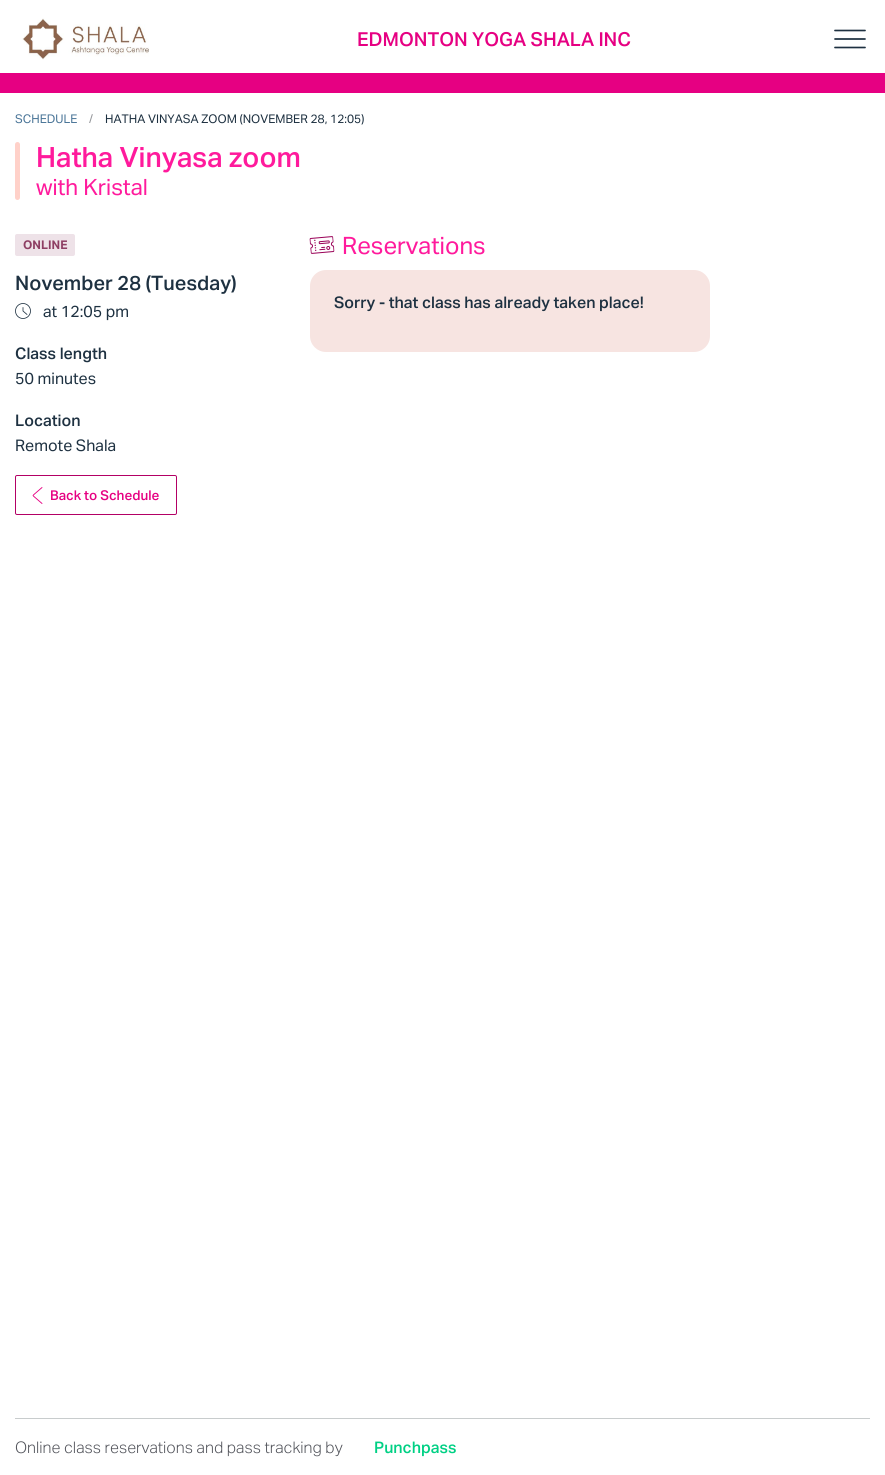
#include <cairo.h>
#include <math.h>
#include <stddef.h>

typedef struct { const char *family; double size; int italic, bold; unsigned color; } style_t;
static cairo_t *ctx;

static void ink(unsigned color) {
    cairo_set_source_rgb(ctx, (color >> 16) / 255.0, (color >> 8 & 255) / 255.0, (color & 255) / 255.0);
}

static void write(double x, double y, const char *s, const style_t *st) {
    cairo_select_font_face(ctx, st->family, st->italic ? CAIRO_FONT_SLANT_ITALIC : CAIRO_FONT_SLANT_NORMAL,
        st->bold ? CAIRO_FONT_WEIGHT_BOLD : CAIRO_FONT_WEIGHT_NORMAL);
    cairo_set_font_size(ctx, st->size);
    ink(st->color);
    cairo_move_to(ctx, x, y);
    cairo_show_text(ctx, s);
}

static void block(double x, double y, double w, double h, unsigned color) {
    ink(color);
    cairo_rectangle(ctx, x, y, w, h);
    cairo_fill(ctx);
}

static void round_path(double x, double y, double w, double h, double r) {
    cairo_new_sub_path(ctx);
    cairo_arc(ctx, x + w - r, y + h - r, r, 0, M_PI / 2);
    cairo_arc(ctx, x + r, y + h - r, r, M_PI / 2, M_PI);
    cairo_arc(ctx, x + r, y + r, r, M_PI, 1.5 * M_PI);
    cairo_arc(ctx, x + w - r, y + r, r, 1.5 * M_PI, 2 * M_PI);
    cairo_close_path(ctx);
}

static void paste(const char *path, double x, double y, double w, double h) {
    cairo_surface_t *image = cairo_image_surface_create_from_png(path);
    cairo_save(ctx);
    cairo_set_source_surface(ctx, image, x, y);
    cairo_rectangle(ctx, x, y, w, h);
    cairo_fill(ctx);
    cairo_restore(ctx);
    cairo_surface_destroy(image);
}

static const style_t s1 = {"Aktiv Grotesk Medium", 19.25, 0, 0, 0xe60082};
static const style_t s2 = {"Aktiv Grotesk", 12, 0, 0, 0x497497};
static const style_t s3 = {"Aktiv Grotesk", 12, 0, 0, 0x95979b};
static const style_t s4 = {"Aktiv Grotesk", 12, 0, 0, 0x1e3141};
static const style_t s5 = {"Aktiv Grotesk Medium", 28, 0, 0, 0xff1a9c};
static const style_t s6 = {"Aktiv Grotesk", 22.5, 0, 0, 0xff1a9c};
static const style_t s7 = {"Aktiv Grotesk", 12, 0, 1, 0x8e3e63};
static const style_t s8 = {"Aktiv Grotesk Medium", 20, 0, 0, 0x1e3141};
static const style_t s9 = {"Aktiv Grotesk", 16, 0, 0, 0x1e3141};
static const style_t s10 = {"Aktiv Grotesk Medium", 16, 0, 0, 0x1e3141};
static const style_t s11 = {"Aktiv Grotesk Medium", 13.5, 0, 0, 0xe60082};
static const style_t s12 = {"Aktiv Grotesk", 24, 0, 0, 0xff1a9c};
static const style_t s13 = {"Aktiv Grotesk Light", 16, 0, 0, 0x51535a};
static const style_t s14 = {"Aktiv Grotesk Medium", 16, 0, 0, 0x00d084};

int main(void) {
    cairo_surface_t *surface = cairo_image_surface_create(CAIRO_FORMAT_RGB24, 885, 1475);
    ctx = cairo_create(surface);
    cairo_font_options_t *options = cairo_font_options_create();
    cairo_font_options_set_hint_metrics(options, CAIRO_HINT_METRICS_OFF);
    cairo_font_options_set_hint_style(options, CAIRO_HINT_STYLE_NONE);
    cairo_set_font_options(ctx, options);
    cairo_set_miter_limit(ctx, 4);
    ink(0xffffff);
    cairo_paint(ctx);
    block(0, 73, 885, 20, 0xe60082);
    paste("pic1.png", 22, 18, 127, 42);
    write(357, 46, "EDMONTON YOGA SHALA INC", &s1);
    cairo_new_path(ctx);
    cairo_move_to(ctx, 865, 30.5);
    cairo_line_to(ctx, 835, 30.5);
    cairo_move_to(ctx, 865, 39);
    cairo_line_to(ctx, 835, 39);
    cairo_move_to(ctx, 865, 47.5);
    cairo_line_to(ctx, 835, 47.5);
    ink(0x1e3141);
    cairo_set_line_width(ctx, 1.7);
    cairo_set_line_cap(ctx, CAIRO_LINE_CAP_ROUND);
    cairo_set_line_join(ctx, CAIRO_LINE_JOIN_ROUND);
    cairo_stroke(ctx);
    write(15, 123, "SCHEDULE", &s2);
    write(89, 123, "/", &s3);
    write(105, 123, "HATHA VINYASA ZOOM (NOVEMBER 28, 12:05)", &s4);
    ink(0xffd1c9);
    round_path(15, 142, 5, 58, 2.5);
    cairo_fill(ctx);
    write(36, 167, "Hatha Vinyasa zoom", &s5);
    write(36, 195, "with Kristal", &s6);
    ink(0xeee2e8);
    round_path(15, 234, 60, 22, 2);
    cairo_fill(ctx);
    write(23, 249, "ONLINE", &s7);
    write(15, 290, "November 28 (Tuesday)", &s8);
    cairo_new_path(ctx);
    cairo_arc(ctx, 23, 311, 7.5, 0, 2 * M_PI);
    cairo_set_line_width(ctx, 0.8);
    cairo_set_line_cap(ctx, CAIRO_LINE_CAP_BUTT);
    cairo_set_line_join(ctx, CAIRO_LINE_JOIN_MITER);
    cairo_stroke(ctx);
    cairo_new_path(ctx);
    cairo_move_to(ctx, 23, 307.5);
    cairo_line_to(ctx, 23, 311);
    cairo_line_to(ctx, 27, 314.5);
    cairo_set_line_cap(ctx, CAIRO_LINE_CAP_ROUND);
    cairo_set_line_join(ctx, CAIRO_LINE_JOIN_ROUND);
    cairo_stroke(ctx);
    write(43, 317, "at 12:05 pm", &s9);
    write(15, 359, "Class length", &s10);
    write(15, 384, "50 minutes", &s9);
    write(15, 426, "Location", &s10);
    write(15, 451, "Remote Shala", &s9);
    round_path(15.5, 475.5, 161, 39, 1.5);
    ink(0xb30065);
    cairo_set_line_width(ctx, 1);
    cairo_set_line_cap(ctx, CAIRO_LINE_CAP_BUTT);
    cairo_set_line_join(ctx, CAIRO_LINE_JOIN_MITER);
    cairo_stroke(ctx);
    cairo_new_path(ctx);
    cairo_move_to(ctx, 42, 487.5);
    cairo_line_to(ctx, 34.5, 494);
    cairo_curve_to(ctx, 32.5, 496, 32.5, 495, 34.5, 497);
    cairo_line_to(ctx, 42, 503.5);
    ink(0xe60082);
    cairo_set_line_width(ctx, 0.9);
    cairo_set_line_cap(ctx, CAIRO_LINE_CAP_ROUND);
    cairo_set_line_join(ctx, CAIRO_LINE_JOIN_ROUND);
    cairo_stroke(ctx);
    write(50, 500, "Back to Schedule", &s11);
    paste("pic2.png", 309, 236, 26, 18);
    write(342, 254, "Reservations", &s12);
    ink(0xf7e4e1);
    round_path(310, 270, 400, 82, 16);
    cairo_fill(ctx);
    write(334, 308, "Sorry - that class has already taken place!", &s10);
    block(15, 1418, 855, 1, 0xc8cccd);
    write(15, 1453, "Online class reservations and pass tracking by", &s13);
    write(374, 1453, "Punchpass", &s14);
    cairo_surface_write_to_png(surface, "screenshot.png");
    cairo_font_options_destroy(options);
    cairo_destroy(ctx);
    cairo_surface_destroy(surface);
    return 0;
}
